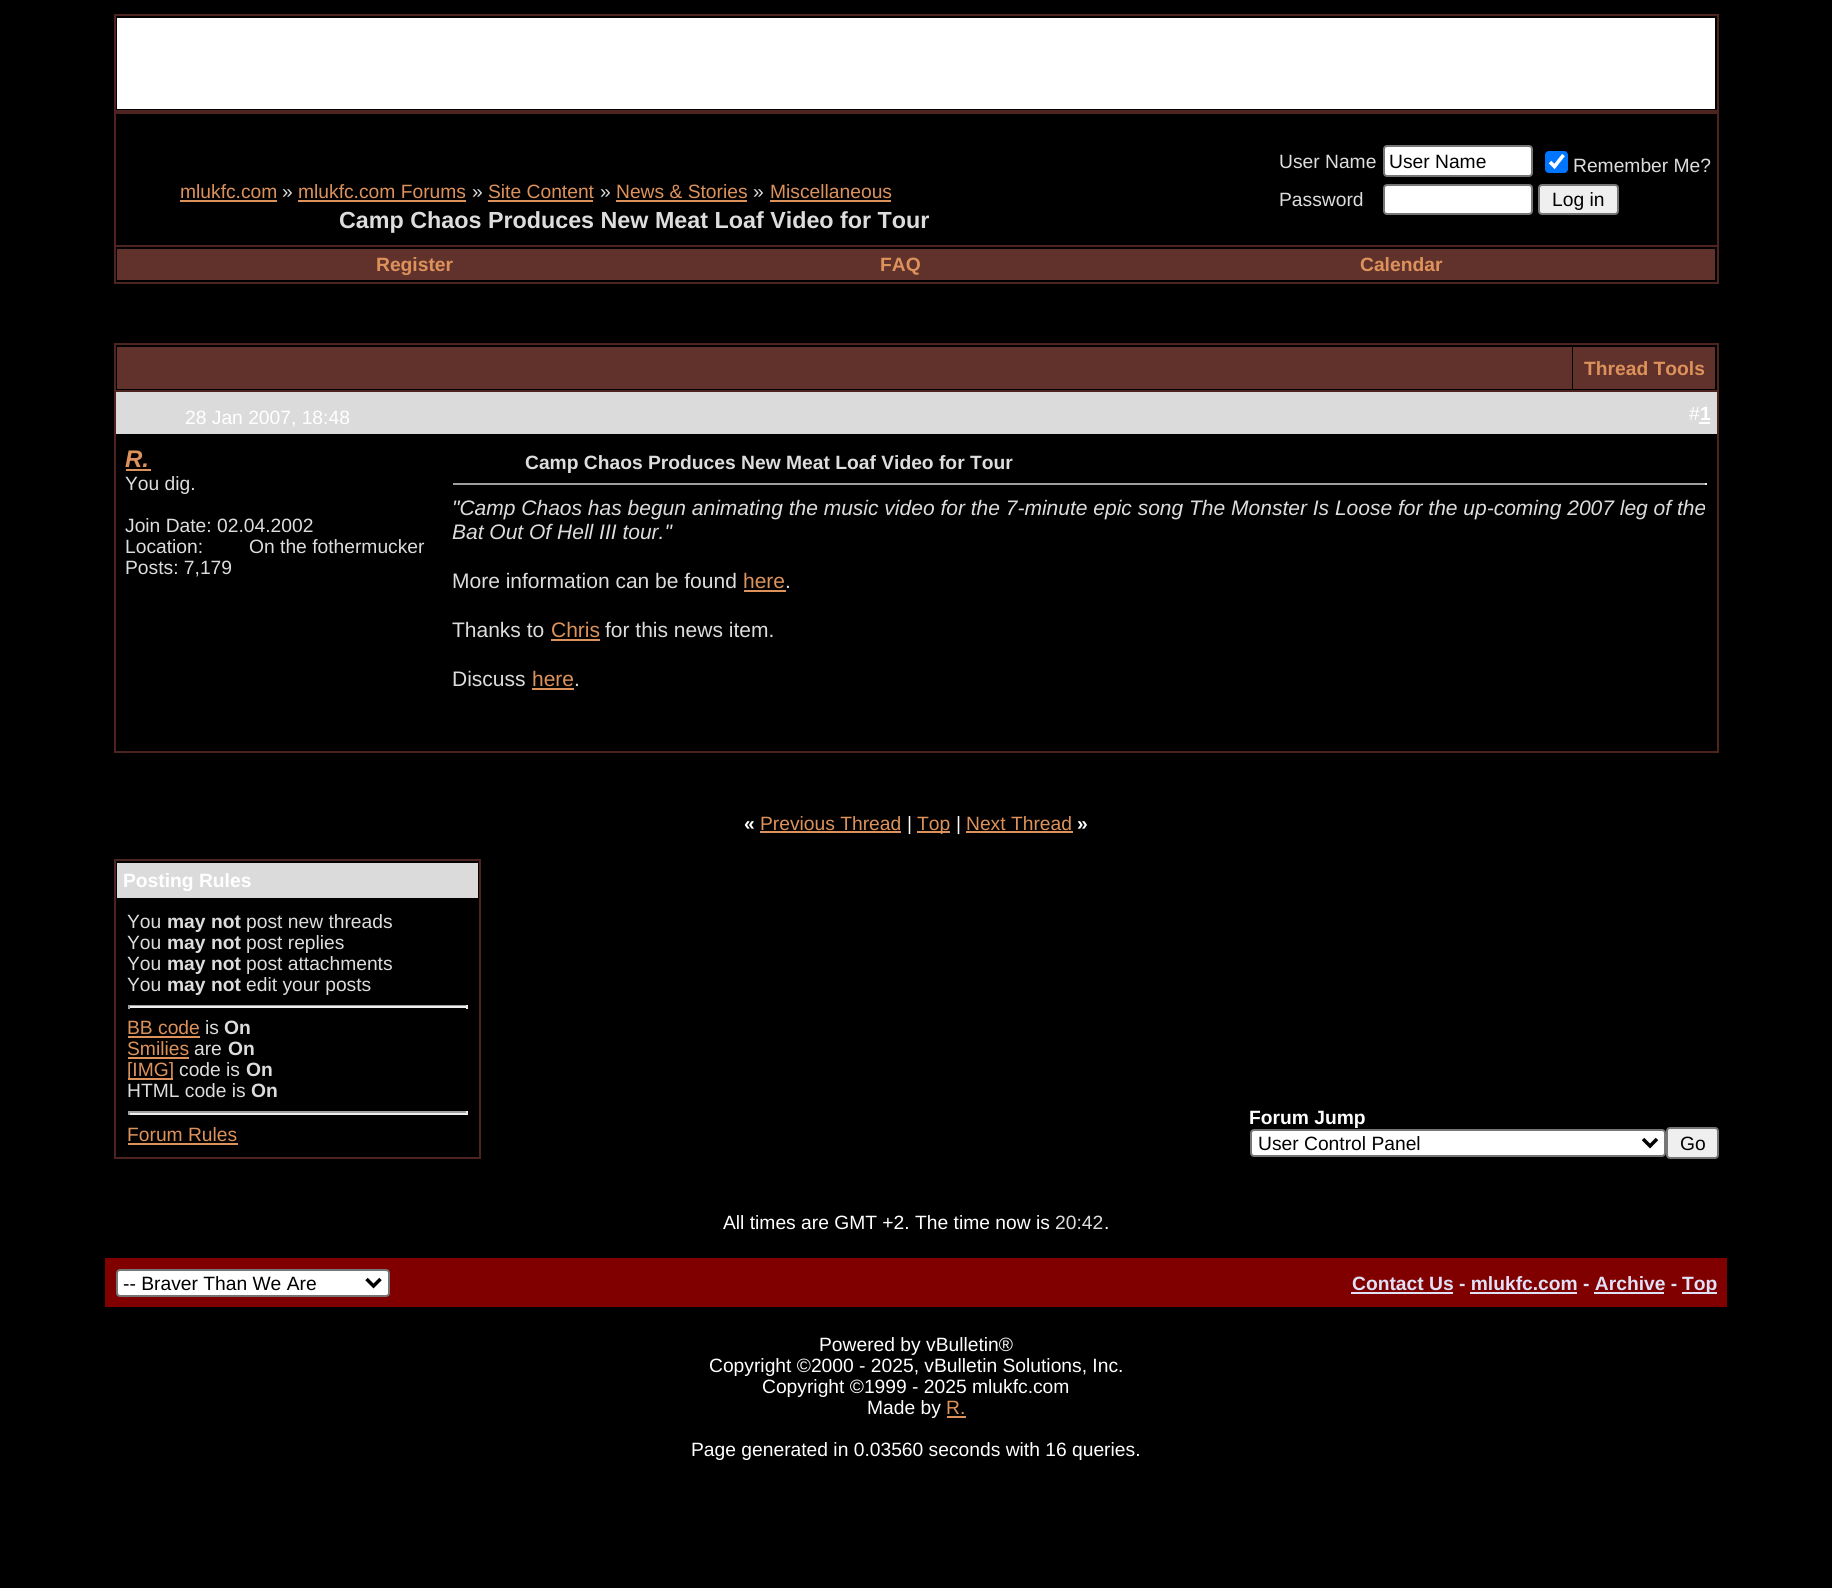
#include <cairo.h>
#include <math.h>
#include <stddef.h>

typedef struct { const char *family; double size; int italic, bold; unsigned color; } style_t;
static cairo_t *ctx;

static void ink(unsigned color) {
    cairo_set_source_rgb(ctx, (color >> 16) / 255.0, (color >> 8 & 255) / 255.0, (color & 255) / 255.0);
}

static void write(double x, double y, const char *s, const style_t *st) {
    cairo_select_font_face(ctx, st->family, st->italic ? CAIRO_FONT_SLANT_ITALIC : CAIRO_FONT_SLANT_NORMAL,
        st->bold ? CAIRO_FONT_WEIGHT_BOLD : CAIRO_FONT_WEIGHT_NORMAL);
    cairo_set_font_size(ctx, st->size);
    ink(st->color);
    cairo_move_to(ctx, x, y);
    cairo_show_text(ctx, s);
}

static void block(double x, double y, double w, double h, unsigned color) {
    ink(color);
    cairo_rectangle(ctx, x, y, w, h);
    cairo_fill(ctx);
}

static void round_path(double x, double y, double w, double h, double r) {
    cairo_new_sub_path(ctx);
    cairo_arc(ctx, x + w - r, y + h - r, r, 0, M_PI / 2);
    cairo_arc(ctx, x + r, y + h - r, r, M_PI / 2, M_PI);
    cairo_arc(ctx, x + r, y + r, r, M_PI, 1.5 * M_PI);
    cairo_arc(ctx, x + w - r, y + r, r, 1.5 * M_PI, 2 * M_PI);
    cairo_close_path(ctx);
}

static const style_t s1 = {"Liberation Sans", 19.25, 0, 0, 0xdd925b};
static const style_t s2 = {"Liberation Sans", 19.25, 0, 0, 0xdddddd};
static const style_t s3 = {"Liberation Sans", 23.3, 0, 1, 0xdddddd};
static const style_t s4 = {"Liberation Sans", 19.25, 0, 0, 0x000000};
static const style_t s5 = {"Liberation Sans", 19.25, 0, 1, 0xdd925b};
static const style_t s6 = {"Liberation Sans", 19.25, 0, 0, 0xffffff};
static const style_t s7 = {"Liberation Sans", 19.25, 0, 1, 0xffffff};
static const style_t s8 = {"Liberation Sans", 24, 1, 1, 0xdd925b};
static const style_t s9 = {"Liberation Sans", 19.25, 0, 1, 0xdddddd};
static const style_t s10 = {"Liberation Sans", 21, 1, 0, 0xdddddd};
static const style_t s11 = {"Liberation Sans", 21, 0, 0, 0xdddddd};
static const style_t s12 = {"Liberation Sans", 21, 0, 0, 0xdd925b};
static const style_t s13 = {"Liberation Sans", 19.25, 0, 1, 0xe0e0f6};

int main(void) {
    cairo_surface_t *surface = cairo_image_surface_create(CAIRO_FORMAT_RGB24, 1832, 1588);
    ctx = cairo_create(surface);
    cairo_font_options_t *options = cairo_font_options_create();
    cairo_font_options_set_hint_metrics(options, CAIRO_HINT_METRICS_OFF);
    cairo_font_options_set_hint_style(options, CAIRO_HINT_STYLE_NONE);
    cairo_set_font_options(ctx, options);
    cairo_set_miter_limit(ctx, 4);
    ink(0x000000);
    cairo_paint(ctx);
    cairo_rectangle(ctx, 115, 15, 1603, 96);
    ink(0x4e2420);
    cairo_stroke(ctx);
    block(117, 18, 1598, 91, 0xffffff);
    cairo_rectangle(ctx, 115, 113, 1603, 133);
    ink(0x4e2420);
    cairo_stroke(ctx);
    write(180, 198, "mlukfc.com", &s1);
    block(180, 200, 97, 2, 0xdd925b);
    write(282, 198, "»", &s2);
    write(298, 198, "mlukfc.com Forums", &s1);
    block(298, 200, 168, 2, 0xdd925b);
    write(472, 198, "»", &s2);
    write(488, 198, "Site Content", &s1);
    block(488, 200, 105, 2, 0xdd925b);
    write(600, 198, "»", &s2);
    write(616, 198, "News & Stories", &s1);
    block(616, 200, 131, 2, 0xdd925b);
    write(753, 198, "»", &s2);
    write(770, 198, "Miscellaneous", &s1);
    block(770, 200, 121, 2, 0xdd925b);
    write(339, 228, "Camp Chaos Produces New Meat Loaf Video for Tour", &s3);
    write(1279, 168, "User Name", &s2);
    ink(0xffffff);
    round_path(1384, 146, 148, 30, 3);
    cairo_fill_preserve(ctx);
    ink(0x767676);
    cairo_stroke(ctx);
    write(1389, 168, "User Name", &s4);
    ink(0x0075ff);
    round_path(1545, 151, 23, 22, 4);
    cairo_fill(ctx);
    cairo_new_path(ctx);
    cairo_move_to(ctx, 1550, 162);
    cairo_line_to(ctx, 1554.5, 166.5);
    cairo_line_to(ctx, 1563.5, 155);
    ink(0xffffff);
    cairo_set_line_width(ctx, 3.6);
    cairo_stroke(ctx);
    write(1573, 172, "Remember Me?", &s2);
    write(1279, 206, "Password", &s2);
    ink(0xffffff);
    round_path(1384, 185, 148, 29, 3);
    cairo_fill_preserve(ctx);
    ink(0x767676);
    cairo_set_line_width(ctx, 2);
    cairo_stroke(ctx);
    ink(0xefefef);
    round_path(1539, 185, 79, 29, 3);
    cairo_fill_preserve(ctx);
    ink(0x767676);
    cairo_stroke(ctx);
    write(1552, 206, "Log in", &s4);
    block(1717, 247, 2, 37, 0x4e2420);
    block(114, 282, 1605, 2, 0x4e2420);
    block(114, 247, 2, 37, 0x4e2420);
    block(117, 249, 1598, 31, 0x61312b);
    write(376, 271, "Register", &s5);
    write(880, 271, "FAQ", &s5);
    write(1360, 271, "Calendar", &s5);
    block(114, 343, 1605, 2, 0x4e2420);
    block(1717, 343, 2, 47, 0x4e2420);
    block(114, 343, 2, 47, 0x4e2420);
    block(117, 347, 1455, 42, 0x61312b);
    block(1573, 347, 142, 42, 0x61312b);
    write(1584, 375, "Thread Tools", &s5);
    cairo_rectangle(ctx, 115, 391, 1603, 361);
    ink(0x4e2420);
    cairo_stroke(ctx);
    block(116, 392, 1601, 42, 0xdbdbdb);
    write(185, 424, "28 Jan 2007, 18:48", &s6);
    write(1689, 420, "#", &s6);
    write(1700, 420, "1", &s7);
    block(1699, 422, 11, 2, 0xffffff);
    write(125, 467, "R.", &s8);
    block(126, 469, 25, 2, 0xdd925b);
    write(125, 490, "You dig.", &s2);
    write(125, 532, "Join Date: 02.04.2002", &s2);
    write(125, 553, "Location:", &s2);
    write(249, 553, "On the fothermucker", &s2);
    write(125, 574, "Posts: 7,179", &s2);
    write(525, 469, "Camp Chaos Produces New Meat Loaf Video for Tour", &s9);
    block(453, 483, 1253, 2, 0x9f9f9f);
    block(1705, 483, 2, 2, 0xeeeeee);
    write(452, 515, "\"Camp Chaos has begun animating the music video for the 7-minute epic song The Monster Is Loose for the up-coming 2007 leg of the", &s10);
    write(452, 539, "Bat Out Of Hell III tour.\"", &s10);
    write(452, 588, "More information can be found", &s11);
    write(743, 588, "here", &s12);
    block(744, 590, 42, 2, 0xdd925b);
    write(785, 588, ".", &s11);
    write(452, 637, "Thanks to", &s11);
    write(551, 637, "Chris", &s12);
    block(551, 639, 49, 2, 0xdd925b);
    write(605, 637, "for this news item.", &s11);
    write(452, 686, "Discuss", &s11);
    write(532, 686, "here", &s12);
    block(532, 688, 42, 2, 0xdd925b);
    write(574, 686, ".", &s11);
    write(744, 830, "«", &s7);
    write(760, 830, "Previous Thread", &s1);
    block(760, 831, 141, 2, 0xdd925b);
    write(907, 830, "|", &s6);
    block(917, 831, 33, 2, 0xdd925b);
    write(917, 830, "Top", &s1);
    write(956, 830, "|", &s6);
    write(966, 830, "Next Thread", &s1);
    block(966, 831, 107, 2, 0xdd925b);
    write(1077, 830, "»", &s7);
    cairo_rectangle(ctx, 115, 860, 365, 298);
    ink(0x4e2420);
    cairo_stroke(ctx);
    block(117, 863, 361, 35, 0xdbdbdb);
    write(123, 887, "Posting Rules", &s7);
    write(127, 928, "You", &s2);
    write(167, 928, "may not", &s9);
    write(246, 928, "post new threads", &s2);
    write(127, 949, "You", &s2);
    write(167, 949, "may not", &s9);
    write(246, 949, "post replies", &s2);
    write(127, 970, "You", &s2);
    write(167, 970, "may not", &s9);
    write(246, 970, "post attachments", &s2);
    write(127, 991, "You", &s2);
    write(167, 991, "may not", &s9);
    write(246, 991, "edit your posts", &s2);
    block(128, 1005, 339, 1, 0x9f9f9f);
    block(466, 1005, 2, 4, 0xeeeeee);
    block(128, 1006, 339, 2, 0xeeeeee);
    block(128, 1005, 2, 4, 0x9f9f9f);
    write(127, 1034, "BB code", &s1);
    block(128, 1036, 72, 2, 0xdd925b);
    write(205, 1034, "is", &s2);
    write(224, 1034, "On", &s9);
    write(127, 1055, "Smilies", &s1);
    block(128, 1057, 61, 2, 0xdd925b);
    write(194, 1055, "are", &s2);
    write(228, 1055, "On", &s9);
    block(128, 1078, 45, 2, 0xdd925b);
    write(127, 1076, "[IMG]", &s1);
    write(179, 1076, "code is", &s2);
    write(246, 1076, "On", &s9);
    write(127, 1097, "HTML code is", &s2);
    write(251, 1097, "On", &s9);
    block(128, 1111, 339, 2, 0x9f9f9f);
    block(466, 1111, 2, 4, 0xeeeeee);
    block(128, 1113, 339, 2, 0xeeeeee);
    block(128, 1111, 2, 4, 0x9f9f9f);
    write(127, 1141, "Forum Rules", &s1);
    block(128, 1143, 110, 2, 0xdd925b);
    write(1249, 1124, "Forum Jump", &s7);
    round_path(1251, 1130, 414, 26, 3);
    cairo_fill_preserve(ctx);
    ink(0x767676);
    cairo_stroke(ctx);
    cairo_new_path(ctx);
    cairo_move_to(ctx, 1643, 1139);
    cairo_line_to(ctx, 1650, 1146);
    cairo_line_to(ctx, 1657, 1139);
    ink(0x000000);
    cairo_set_line_width(ctx, 3.5);
    cairo_stroke(ctx);
    write(1258, 1150, "User Control Panel", &s4);
    ink(0xefefef);
    round_path(1667, 1128, 51, 30, 3);
    cairo_fill_preserve(ctx);
    ink(0x767676);
    cairo_set_line_width(ctx, 2);
    cairo_stroke(ctx);
    write(1680, 1150, "Go", &s4);
    write(723, 1229, "All times are GMT +2. The time now is", &s6);
    write(1055, 1229, "20:42", &s2);
    write(1104, 1229, ".", &s6);
    block(105, 1258, 1622, 49, 0x800000);
    ink(0xffffff);
    round_path(117, 1270, 272, 26, 3);
    cairo_fill_preserve(ctx);
    ink(0x767676);
    cairo_stroke(ctx);
    cairo_new_path(ctx);
    cairo_move_to(ctx, 366.5, 1279);
    cairo_line_to(ctx, 373.5, 1286);
    cairo_line_to(ctx, 380.5, 1279);
    ink(0x000000);
    cairo_set_line_width(ctx, 3.5);
    cairo_stroke(ctx);
    write(123, 1290, "-- Braver Than We Are", &s4);
    write(1352, 1290, "Contact Us - mlukfc.com - Archive -", &s13);
    block(1351, 1292, 102, 2, 0xe0e0f6);
    block(1470, 1292, 107, 2, 0xe0e0f6);
    block(1594, 1292, 70, 2, 0xe0e0f6);
    block(1682, 1292, 35, 2, 0xe0e0f6);
    write(1682, 1290, "Top", &s13);
    write(819, 1351, "Powered by vBulletin®", &s6);
    write(709, 1372, "Copyright ©2000 - 2025, vBulletin Solutions, Inc.", &s6);
    write(762, 1393, "Copyright ©1999 - 2025 mlukfc.com", &s6);
    write(867, 1414, "Made by", &s6);
    write(946, 1414, "R.", &s1);
    block(947, 1416, 19, 2, 0xdd925b);
    write(691, 1456, "Page generated in 0.03560 seconds with 16 queries.", &s6);
    cairo_surface_write_to_png(surface, "screenshot.png");
    cairo_font_options_destroy(options);
    cairo_destroy(ctx);
    cairo_surface_destroy(surface);
    return 0;
}
